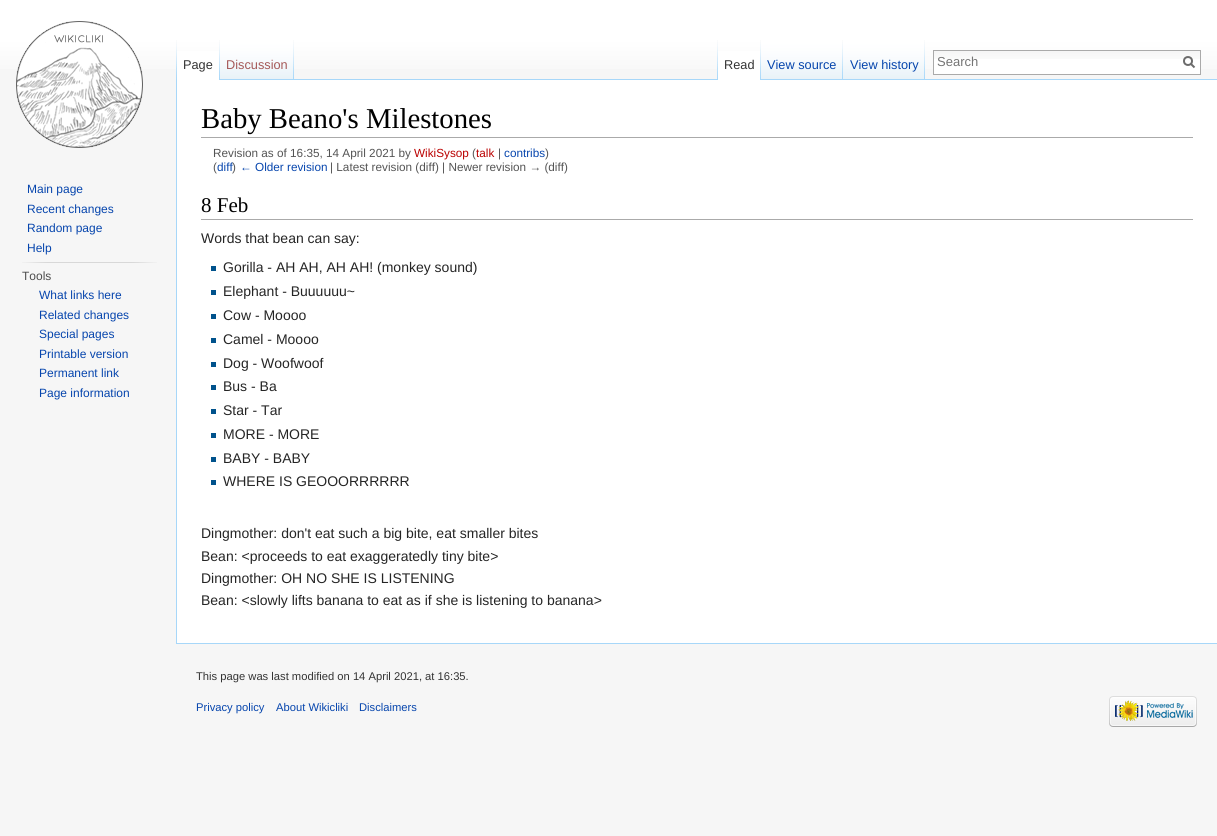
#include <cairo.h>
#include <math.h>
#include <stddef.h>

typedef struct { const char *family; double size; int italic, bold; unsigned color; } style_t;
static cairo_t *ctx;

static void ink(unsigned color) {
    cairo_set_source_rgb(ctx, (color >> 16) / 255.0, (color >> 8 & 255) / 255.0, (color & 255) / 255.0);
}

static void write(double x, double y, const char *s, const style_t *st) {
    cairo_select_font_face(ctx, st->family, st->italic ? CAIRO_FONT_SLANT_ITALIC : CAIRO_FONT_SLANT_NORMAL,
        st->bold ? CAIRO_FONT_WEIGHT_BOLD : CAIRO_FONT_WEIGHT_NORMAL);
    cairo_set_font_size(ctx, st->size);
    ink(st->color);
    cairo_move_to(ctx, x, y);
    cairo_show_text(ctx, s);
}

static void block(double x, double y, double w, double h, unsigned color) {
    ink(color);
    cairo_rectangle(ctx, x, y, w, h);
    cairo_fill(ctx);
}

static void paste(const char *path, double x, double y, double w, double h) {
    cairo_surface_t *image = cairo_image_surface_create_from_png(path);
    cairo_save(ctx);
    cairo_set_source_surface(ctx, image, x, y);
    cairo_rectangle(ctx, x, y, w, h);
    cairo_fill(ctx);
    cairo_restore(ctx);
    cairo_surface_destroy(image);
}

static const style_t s1 = {"Liberation Sans", 12.75, 0, 0, 0x333333};
static const style_t s2 = {"Liberation Sans", 12.75, 0, 0, 0xa55858};
static const style_t s3 = {"Liberation Sans", 12.75, 0, 0, 0x0645ad};
static const style_t s4 = {"Liberation Sans", 13, 0, 0, 0x757575};
static const style_t s5 = {"Liberation Sans", 12, 0, 0, 0x0645ad};
static const style_t s6 = {"Liberation Sans", 12, 0, 0, 0x4d4d4d};
static const style_t s7 = {"Liberation Serif", 28.75, 0, 0, 0x000000};
static const style_t s8 = {"Liberation Sans", 11.75, 0, 0, 0x545454};
static const style_t s9 = {"Liberation Sans", 11.75, 0, 0, 0xba0000};
static const style_t s10 = {"Liberation Sans", 11.75, 0, 0, 0x0645ad};
static const style_t s11 = {"Liberation Serif", 21, 0, 0, 0x000000};
static const style_t s12 = {"Liberation Sans", 14, 0, 0, 0x252525};
static const style_t s13 = {"Liberation Sans", 11.2, 0, 0, 0x333333};
static const style_t s14 = {"Liberation Sans", 11.2, 0, 0, 0x0645ad};

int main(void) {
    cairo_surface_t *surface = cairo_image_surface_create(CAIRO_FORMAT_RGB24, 1217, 836);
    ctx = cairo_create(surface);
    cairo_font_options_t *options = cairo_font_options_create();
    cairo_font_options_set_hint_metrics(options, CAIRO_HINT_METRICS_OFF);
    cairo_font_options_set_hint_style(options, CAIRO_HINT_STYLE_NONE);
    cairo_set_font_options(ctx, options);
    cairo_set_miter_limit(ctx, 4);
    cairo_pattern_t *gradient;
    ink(0xf6f6f6);
    cairo_paint(ctx);
    gradient = cairo_pattern_create_linear(609, 0, 609, 80);
    cairo_pattern_add_color_stop_rgba(gradient, 0.5, 1, 1, 1, 1);
    cairo_pattern_add_color_stop_rgba(gradient, 1, 0.965, 0.965, 0.965, 1);
    cairo_set_source(ctx, gradient);
    cairo_pattern_destroy(gradient);
    cairo_rectangle(ctx, 0, 0, 1217, 69);
    cairo_fill(ctx);
    paste("pic1.png", 176, 40, 1, 39);
    block(177, 51, 42, 29, 0xffffff);
    paste("pic2.png", 219, 40, 1, 40);
    write(183, 69, "Page", &s1);
    paste("pic3.png", 220, 40, 74, 40);
    paste("pic4.png", 293, 40, 1, 39);
    write(226, 69, "Discussion", &s2);
    paste("pic1.png", 717, 40, 1, 39);
    block(294, 79, 923, 1, 0xa7d7f9);
    block(718, 51, 42, 29, 0xffffff);
    paste("pic2.png", 760, 40, 1, 40);
    write(724, 69, "Read", &s1);
    paste("pic5.png", 761, 40, 82, 40);
    paste("pic4.png", 842, 40, 1, 39);
    write(767, 69, "View source", &s3);
    paste("pic5.png", 843, 40, 82, 40);
    paste("pic4.png", 924, 40, 1, 39);
    write(850, 69, "View history", &s3);
    block(934, 59, 266, 15, 0xffffff);
    paste("pic6.png", 934, 51, 266, 8);
    cairo_rectangle(ctx, 933.5, 50.5, 267, 24);
    ink(0xaaaaaa);
    cairo_set_line_width(ctx, 1);
    cairo_stroke(ctx);
    write(937, 66, "Search", &s4);
    cairo_new_path(ctx);
    cairo_move_to(ctx, 1194.5, 67.5);
    cairo_line_to(ctx, 1190.5, 63.5);
    ink(0x6c6c6c);
    cairo_set_line_width(ctx, 2);
    cairo_stroke(ctx);
    cairo_arc(ctx, 1188, 61, 4, 0, 2 * M_PI);
    cairo_stroke(ctx);
    paste("pic7.png", 16, 21, 127, 127);
    write(27, 193, "Main page", &s5);
    write(27, 213, "Recent changes", &s5);
    write(27, 232, "Random page", &s5);
    write(27, 252, "Help", &s5);
    paste("pic8.png", 22, 262, 135, 1);
    write(22, 280, "Tools", &s6);
    write(39, 299, "What links here", &s5);
    write(39, 319, "Related changes", &s5);
    write(39, 338, "Special pages", &s5);
    write(39, 358, "Printable version", &s5);
    write(39, 377, "Permanent link", &s5);
    write(39, 397, "Page information", &s5);
    block(177, 80, 1040, 563, 0xffffff);
    block(176, 643, 1041, 1, 0xa7d7f9);
    block(176, 79, 1, 565, 0xa7d7f9);
    block(201, 137, 992, 1, 0xaaaaaa);
    write(201, 128, "Baby Beano's Milestones", &s7);
    write(213, 157, "Revision as of 16:35, 14 April 2021 by", &s8);
    write(414, 157, "WikiSysop", &s9);
    write(472, 157, "(", &s8);
    write(476, 157, "talk", &s9);
    write(498, 157, "|", &s8);
    write(504, 157, "contribs", &s10);
    write(545, 157, ")", &s8);
    write(213, 171, "(", &s8);
    write(217, 171, "diff", &s10);
    write(232, 171, ")", &s8);
    write(240, 171, "← Older revision", &s10);
    write(330, 171, "| Latest revision (diff) | Newer revision → (diff)", &s8);
    block(201, 219, 992, 1, 0xaaaaaa);
    write(201, 212, "8 Feb", &s11);
    write(201, 243, "Words that bean can say:", &s12);
    block(211, 266, 5, 5, 0x00528c);
    write(223, 272, "Gorilla - AH AH, AH AH! (monkey sound)", &s12);
    block(211, 290, 5, 5, 0x00528c);
    write(223, 296, "Elephant - Buuuuuu~", &s12);
    block(211, 314, 5, 5, 0x00528c);
    write(223, 320, "Cow - Moooo", &s12);
    block(211, 338, 5, 5, 0x00528c);
    write(223, 344, "Camel - Moooo", &s12);
    block(211, 362, 5, 5, 0x00528c);
    write(223, 368, "Dog - Woofwoof", &s12);
    block(211, 385, 5, 5, 0x00528c);
    write(223, 391, "Bus - Ba", &s12);
    block(211, 409, 5, 5, 0x00528c);
    write(223, 415, "Star - Tar", &s12);
    block(211, 433, 5, 5, 0x00528c);
    write(223, 439, "MORE - MORE", &s12);
    block(211, 457, 5, 5, 0x00528c);
    write(223, 463, "BABY - BABY", &s12);
    block(211, 480, 5, 5, 0x00528c);
    write(223, 486, "WHERE IS GEOOORRRRRR", &s12);
    write(201, 538, "Dingmother: don't eat such a big bite, eat smaller bites", &s12);
    write(201, 561, "Bean: <proceeds to eat exaggeratedly tiny bite>", &s12);
    write(201, 583, "Dingmother: OH NO SHE IS LISTENING", &s12);
    write(201, 605, "Bean: <slowly lifts banana to eat as if she is listening to banana>", &s12);
    write(196, 680, "This page was last modified on 14 April 2021, at 16:35.", &s13);
    write(196, 711, "Privacy policy", &s14);
    write(276, 711, "About Wikicliki", &s14);
    write(359, 711, "Disclaimers", &s14);
    paste("pic9.png", 1109, 696, 88, 31);
    cairo_surface_write_to_png(surface, "screenshot.png");
    cairo_font_options_destroy(options);
    cairo_destroy(ctx);
    cairo_surface_destroy(surface);
    return 0;
}
